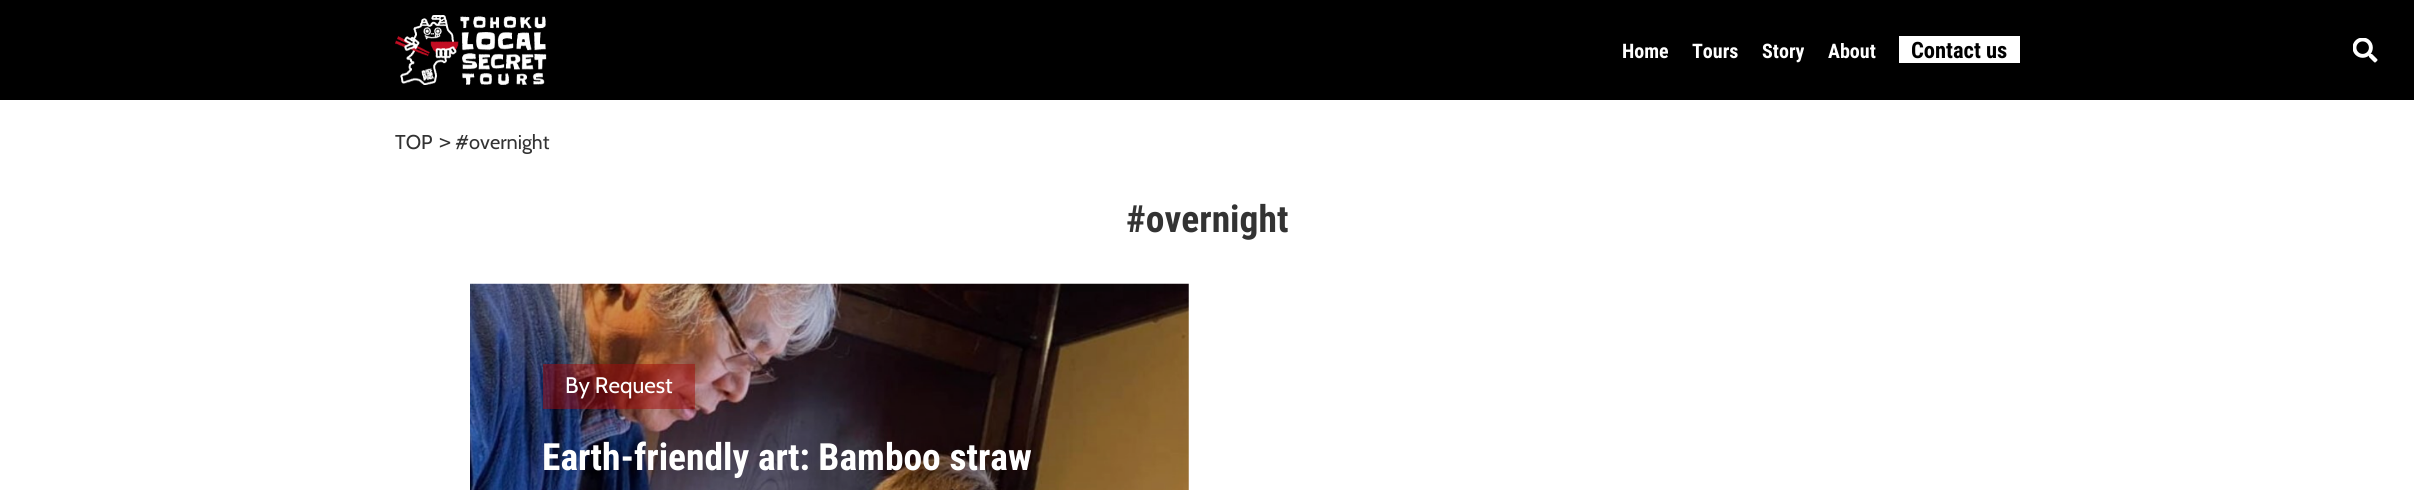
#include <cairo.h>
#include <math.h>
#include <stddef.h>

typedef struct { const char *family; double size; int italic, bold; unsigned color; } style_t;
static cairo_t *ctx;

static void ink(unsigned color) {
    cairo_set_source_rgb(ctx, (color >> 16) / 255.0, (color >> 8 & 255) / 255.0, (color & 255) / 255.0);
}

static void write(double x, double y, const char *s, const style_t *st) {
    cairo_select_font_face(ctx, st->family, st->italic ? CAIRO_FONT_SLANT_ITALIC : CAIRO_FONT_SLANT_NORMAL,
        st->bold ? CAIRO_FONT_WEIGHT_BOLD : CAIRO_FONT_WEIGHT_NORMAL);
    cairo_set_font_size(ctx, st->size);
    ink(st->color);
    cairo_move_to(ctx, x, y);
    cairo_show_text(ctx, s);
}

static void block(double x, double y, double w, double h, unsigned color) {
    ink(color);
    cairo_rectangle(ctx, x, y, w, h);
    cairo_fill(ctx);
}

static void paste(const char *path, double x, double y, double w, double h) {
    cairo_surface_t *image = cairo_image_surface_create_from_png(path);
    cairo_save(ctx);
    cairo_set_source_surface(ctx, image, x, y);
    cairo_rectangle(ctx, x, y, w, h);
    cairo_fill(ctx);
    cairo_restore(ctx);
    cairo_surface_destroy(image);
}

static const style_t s1 = {"Roboto Condensed", 20, 0, 1, 0xffffff};
static const style_t s2 = {"Roboto Condensed", 22.5, 0, 1, 0x000000};
static const style_t s3 = {"Cabin", 20, 0, 0, 0x333333};
static const style_t s4 = {"DejaVu Sans Mono", 20, 0, 0, 0x333333};
static const style_t s5 = {"Roboto Condensed", 37.5, 0, 1, 0x333333};
static const style_t s6 = {"Cabin", 22.5, 0, 0, 0xffffff};
static const style_t s7 = {"Roboto Condensed", 37.5, 0, 1, 0xffffff};

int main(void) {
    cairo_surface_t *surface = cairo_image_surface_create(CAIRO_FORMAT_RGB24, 2414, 490);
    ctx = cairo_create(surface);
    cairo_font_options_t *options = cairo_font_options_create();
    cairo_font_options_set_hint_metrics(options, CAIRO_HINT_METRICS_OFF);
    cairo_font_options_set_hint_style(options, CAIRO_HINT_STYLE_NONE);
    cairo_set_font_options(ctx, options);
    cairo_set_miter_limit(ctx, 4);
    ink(0xffffff);
    cairo_paint(ctx);
    block(0, 0, 2414, 100, 0x000000);
    paste("pic1.png", 395, 15, 152, 70);
    write(1622, 58, "Home", &s1);
    write(1692, 58, "Tours", &s1);
    write(1762, 58, "Story", &s1);
    write(1828, 58, "About", &s1);
    block(1899, 36, 121, 27, 0xffffff);
    write(1911, 58, "Contact us", &s2);
    paste("pic2.png", 2353, 38, 25, 25);
    write(395, 149, "TOP", &s3);
    write(439, 149, ">", &s4);
    write(455, 149, "#overnight", &s3);
    write(1126, 232, "#overnight", &s5);
    paste("pic3.png", 470, 283, 719, 207);
    cairo_set_source_rgba(ctx, 0.643, 0.047, 0.047, 0.5);
    cairo_rectangle(ctx, 543, 364, 152, 45);
    cairo_fill(ctx);
    write(565, 393, "By Request", &s6);
    write(542, 470, "Earth-friendly art: Bamboo straw", &s7);
    cairo_surface_write_to_png(surface, "screenshot.png");
    cairo_font_options_destroy(options);
    cairo_destroy(ctx);
    cairo_surface_destroy(surface);
    return 0;
}
